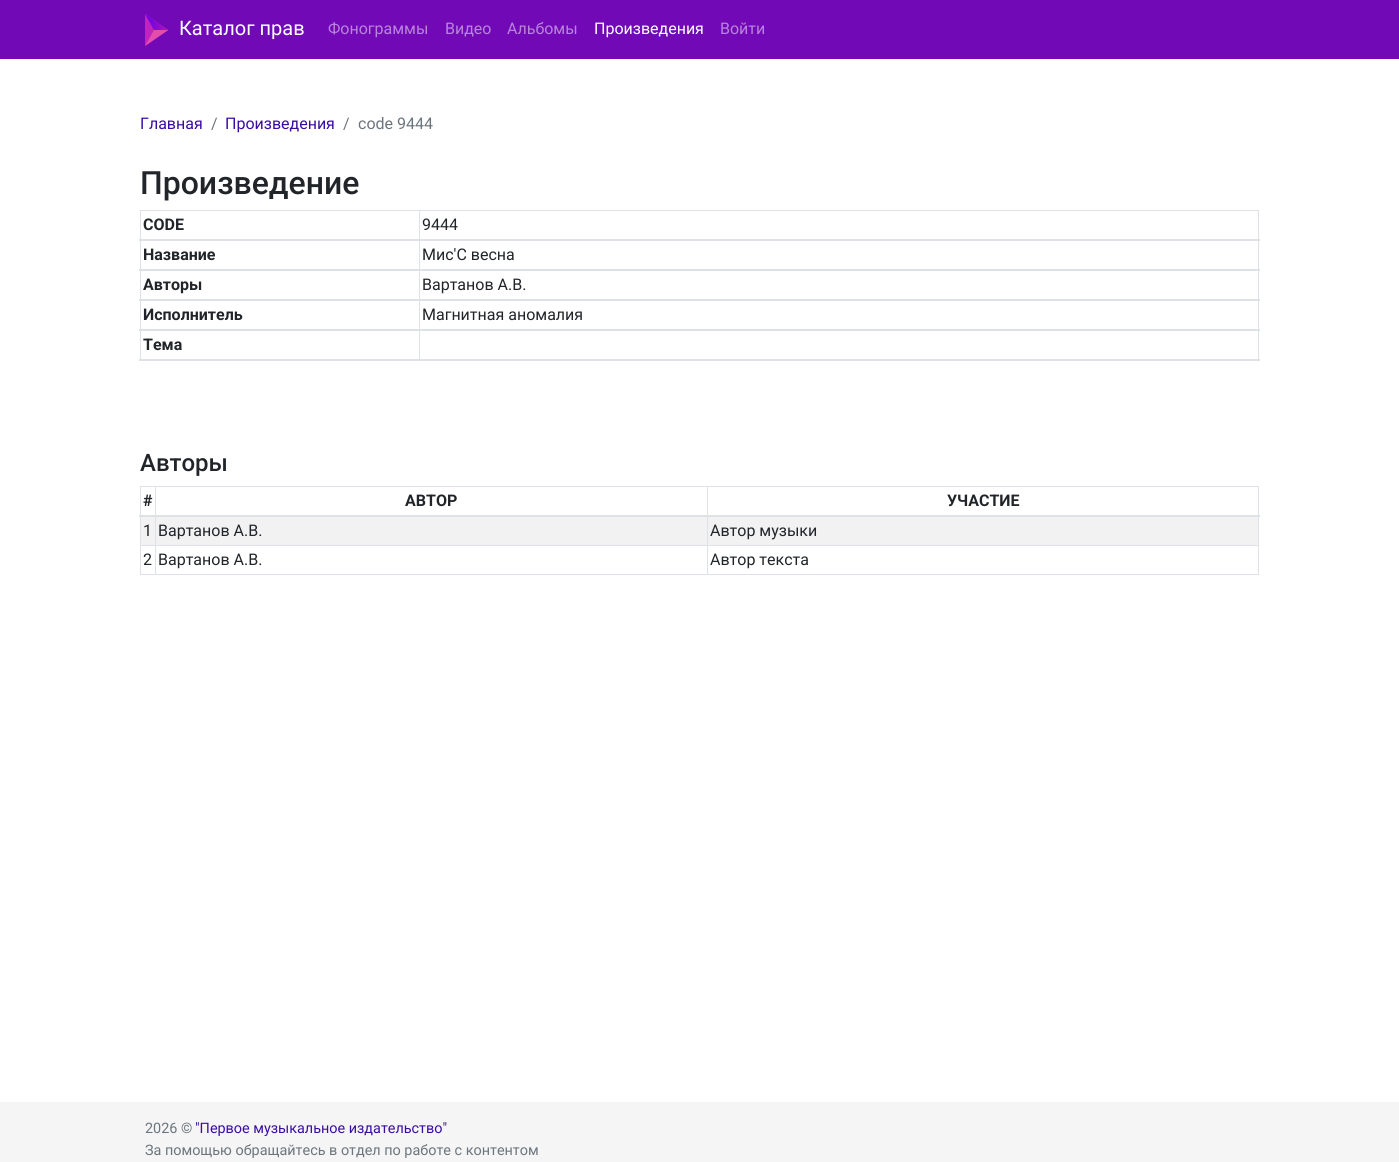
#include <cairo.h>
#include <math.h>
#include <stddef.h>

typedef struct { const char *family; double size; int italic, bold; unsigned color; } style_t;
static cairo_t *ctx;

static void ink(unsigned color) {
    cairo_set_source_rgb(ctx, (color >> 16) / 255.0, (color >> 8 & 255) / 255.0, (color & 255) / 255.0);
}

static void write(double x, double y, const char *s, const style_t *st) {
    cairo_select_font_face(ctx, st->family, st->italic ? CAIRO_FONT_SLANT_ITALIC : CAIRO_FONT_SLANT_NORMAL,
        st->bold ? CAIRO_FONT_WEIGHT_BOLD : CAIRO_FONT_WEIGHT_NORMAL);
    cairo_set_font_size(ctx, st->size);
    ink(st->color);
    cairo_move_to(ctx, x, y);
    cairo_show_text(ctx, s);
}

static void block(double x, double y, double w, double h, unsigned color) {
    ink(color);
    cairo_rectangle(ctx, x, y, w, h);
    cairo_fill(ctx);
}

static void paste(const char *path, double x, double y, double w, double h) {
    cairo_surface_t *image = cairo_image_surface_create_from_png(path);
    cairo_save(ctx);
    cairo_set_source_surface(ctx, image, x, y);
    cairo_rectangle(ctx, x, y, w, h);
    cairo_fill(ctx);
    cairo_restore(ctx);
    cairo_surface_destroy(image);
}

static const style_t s1 = {"Roboto", 20, 0, 0, 0xffffff};
static const style_t s2 = {"Roboto", 16, 0, 0, 0xb984db};
static const style_t s3 = {"Roboto", 16, 0, 0, 0xffffff};
static const style_t s4 = {"Roboto", 16, 0, 0, 0x3a0ca3};
static const style_t s5 = {"Roboto", 16, 0, 0, 0x6c757d};
static const style_t s6 = {"Roboto Medium", 32, 0, 0, 0x212529};
static const style_t s7 = {"Roboto", 16, 0, 1, 0x212529};
static const style_t s8 = {"Roboto", 16, 0, 0, 0x212529};
static const style_t s9 = {"Roboto Medium", 24, 0, 0, 0x212529};
static const style_t s10 = {"Roboto", 14.4, 0, 0, 0x6c757d};
static const style_t s11 = {"Roboto", 14.4, 0, 0, 0x3a0ca3};

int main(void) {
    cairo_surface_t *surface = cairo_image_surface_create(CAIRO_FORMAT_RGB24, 1399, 1162);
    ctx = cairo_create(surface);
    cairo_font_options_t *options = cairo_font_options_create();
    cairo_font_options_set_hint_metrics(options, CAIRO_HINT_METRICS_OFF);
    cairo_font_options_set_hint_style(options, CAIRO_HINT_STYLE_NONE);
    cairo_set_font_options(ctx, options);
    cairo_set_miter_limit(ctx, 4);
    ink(0xffffff);
    cairo_paint(ctx);
    block(0, 0, 1399, 59, 0x7209b7);
    paste("pic1.png", 145, 14, 23, 32);
    write(179, 35, "Каталог прав", &s1);
    write(328, 34, "Фонограммы", &s2);
    write(445, 34, "Видео", &s2);
    write(507, 34, "Альбомы", &s2);
    write(594, 34, "Произведения", &s3);
    write(720, 34, "Войти", &s2);
    write(140, 129, "Главная", &s4);
    write(211, 129, "/", &s5);
    write(225, 129, "Произведения", &s4);
    write(343, 129, "/", &s5);
    write(358, 129, "code 9444", &s5);
    write(140, 194, "Произведение", &s6);
    block(140, 210, 1119, 1, 0xdee2e6);
    block(1258, 210, 1, 151, 0xdee2e6);
    block(140, 210, 1, 151, 0xdee2e6);
    write(143, 230, "CODE", &s7);
    block(419, 210, 1, 151, 0xdee2e6);
    block(139, 239, 1121, 2, 0xdee2e6);
    write(422, 230, "9444", &s8);
    write(143, 260, "Название", &s7);
    block(139, 269, 1121, 2, 0xdee2e6);
    write(422, 260, "Мис'С весна", &s8);
    write(143, 290, "Авторы", &s7);
    block(139, 299, 1121, 2, 0xdee2e6);
    write(422, 290, "Вартанов А.В.", &s8);
    write(143, 320, "Исполнитель", &s7);
    block(139, 329, 1121, 2, 0xdee2e6);
    write(422, 320, "Магнитная аномалия", &s8);
    block(139, 359, 1121, 2, 0xdee2e6);
    write(143, 350, "Тема", &s7);
    write(140, 471, "Авторы", &s9);
    block(140, 486, 1119, 1, 0xdee2e6);
    block(1258, 486, 1, 89, 0xdee2e6);
    block(140, 574, 1119, 1, 0xdee2e6);
    block(140, 486, 1, 89, 0xdee2e6);
    write(143, 506, "#", &s7);
    write(405, 506, "АВТОР", &s7);
    block(141, 517, 1117, 28, 0xf2f2f2);
    block(707, 545, 552, 1, 0xdee2e6);
    block(707, 545, 1, 30, 0xdee2e6);
    block(155, 545, 553, 1, 0xdee2e6);
    block(155, 545, 1, 30, 0xdee2e6);
    block(140, 545, 16, 1, 0xdee2e6);
    block(155, 486, 1, 60, 0xdee2e6);
    block(707, 486, 1, 60, 0xdee2e6);
    block(139, 515, 1121, 2, 0xdee2e6);
    write(947, 506, "УЧАСТИЕ", &s7);
    write(143, 536, "1", &s8);
    write(158, 536, "Вартанов А.В.", &s8);
    write(710, 536, "Автор музыки", &s8);
    write(143, 565, "2", &s8);
    write(158, 565, "Вартанов А.В.", &s8);
    write(710, 565, "Автор текста", &s8);
    block(0, 1102, 1399, 60, 0xf5f5f5);
    write(145, 1133, "2026 ©", &s10);
    write(195, 1133, "\"Первое музыкальное издательство\"", &s11);
    write(145, 1155, "За помощью обращайтесь в отдел по работе с контентом", &s10);
    cairo_surface_write_to_png(surface, "screenshot.png");
    cairo_font_options_destroy(options);
    cairo_destroy(ctx);
    cairo_surface_destroy(surface);
    return 0;
}
